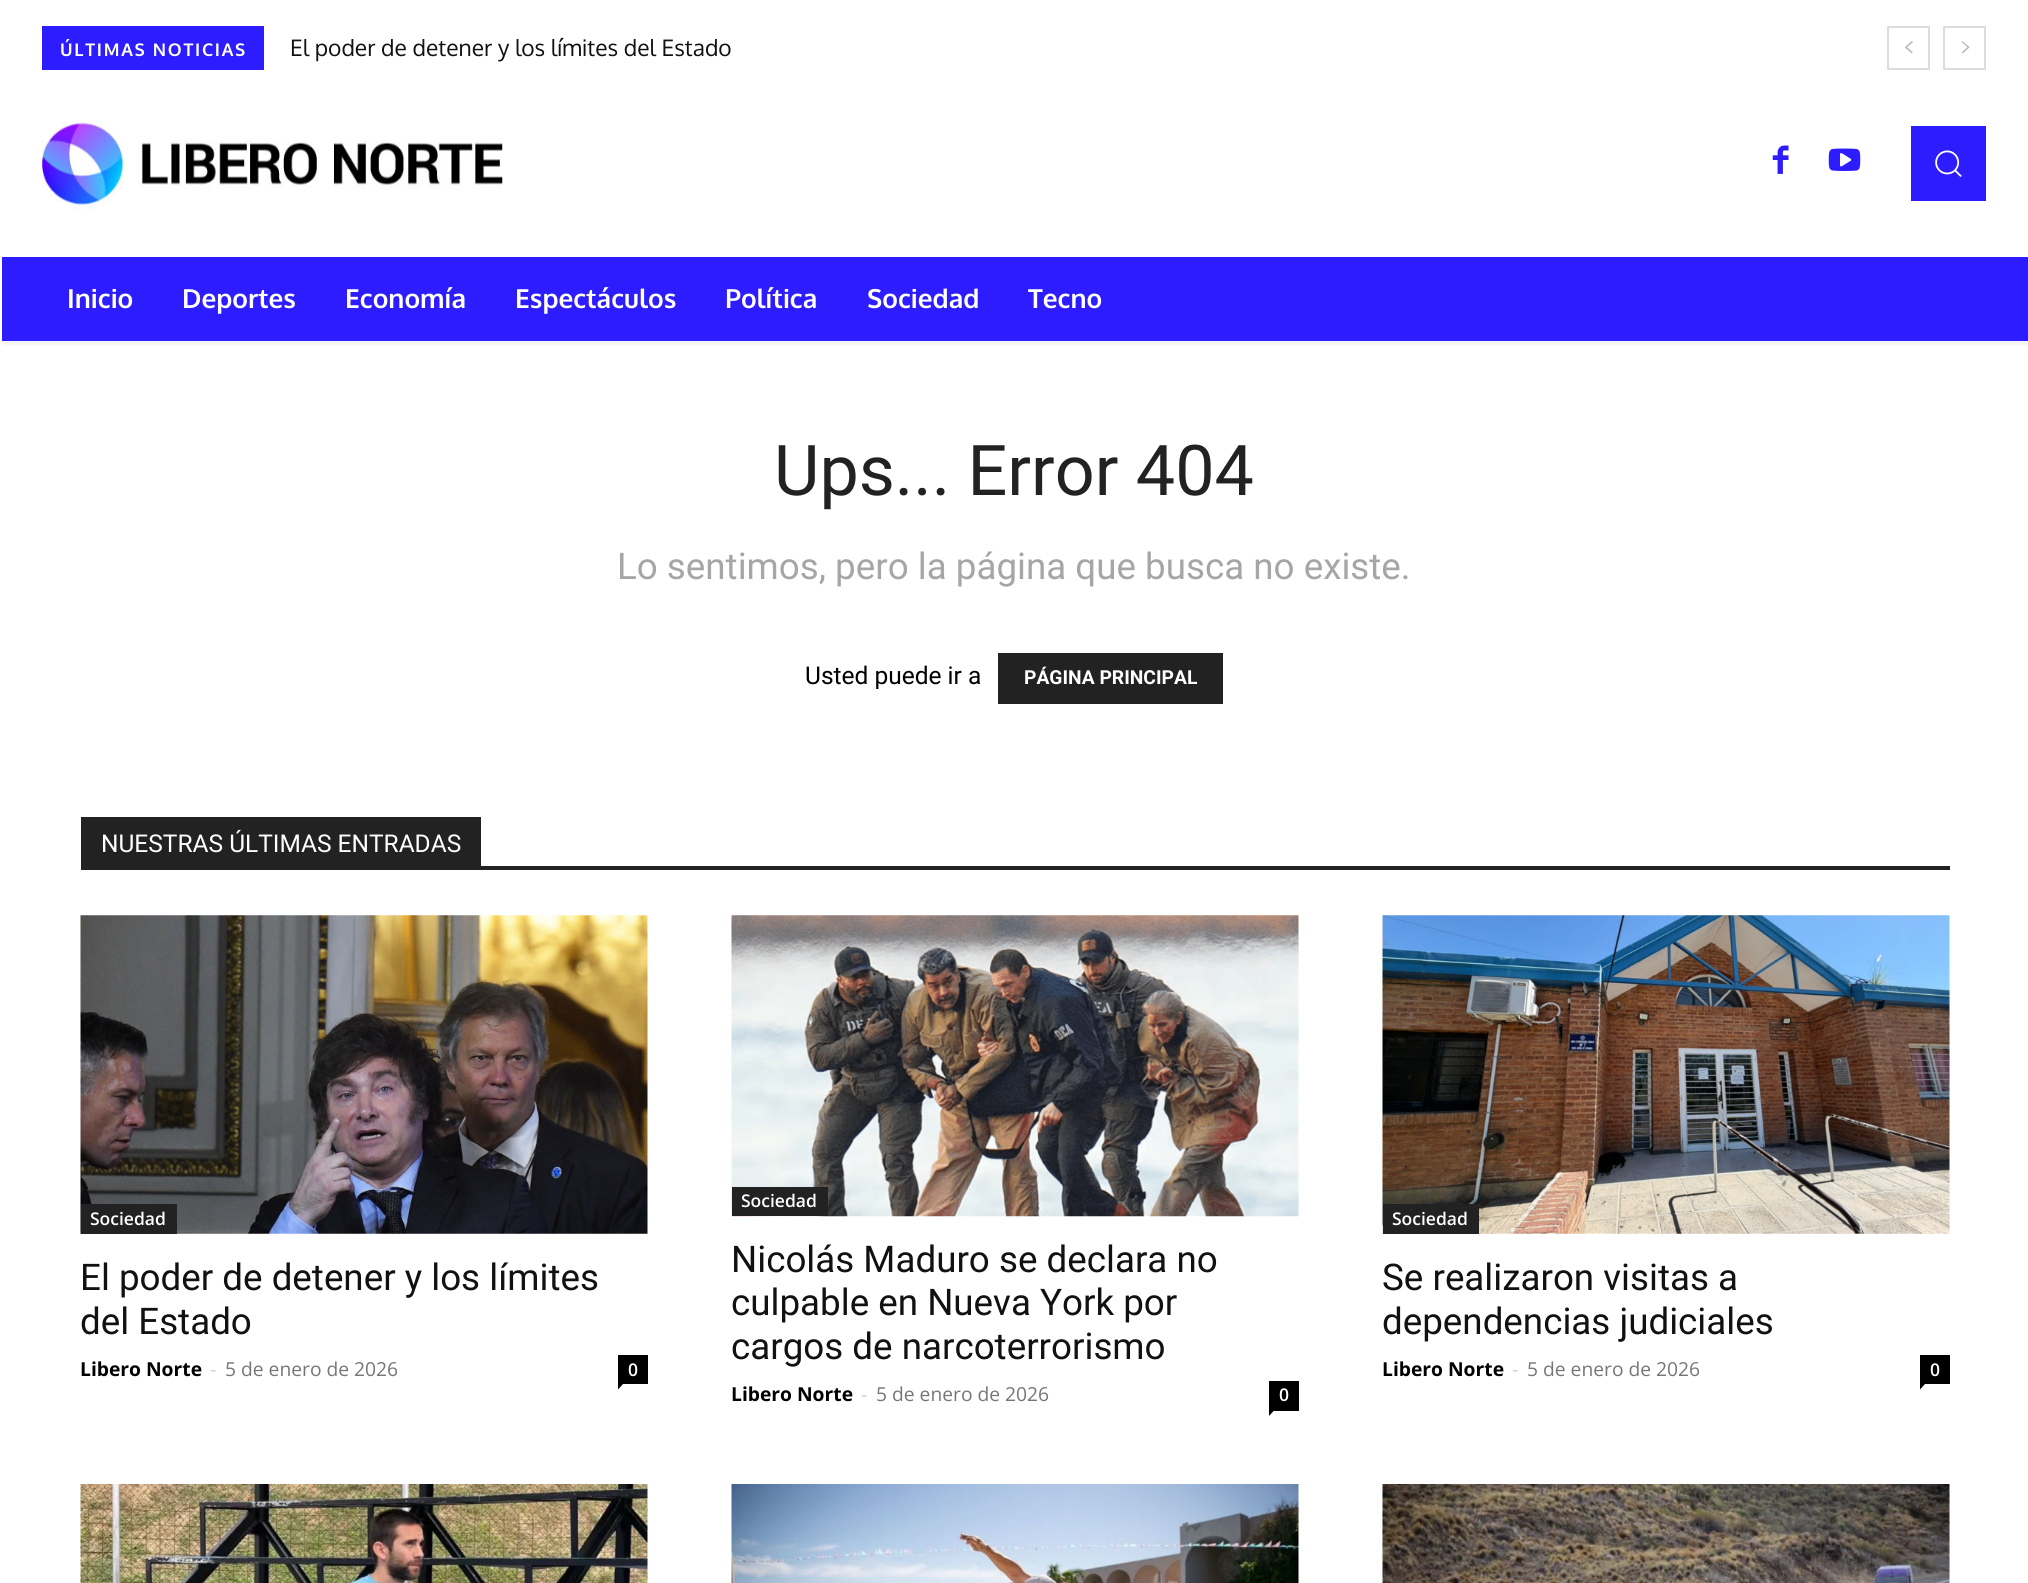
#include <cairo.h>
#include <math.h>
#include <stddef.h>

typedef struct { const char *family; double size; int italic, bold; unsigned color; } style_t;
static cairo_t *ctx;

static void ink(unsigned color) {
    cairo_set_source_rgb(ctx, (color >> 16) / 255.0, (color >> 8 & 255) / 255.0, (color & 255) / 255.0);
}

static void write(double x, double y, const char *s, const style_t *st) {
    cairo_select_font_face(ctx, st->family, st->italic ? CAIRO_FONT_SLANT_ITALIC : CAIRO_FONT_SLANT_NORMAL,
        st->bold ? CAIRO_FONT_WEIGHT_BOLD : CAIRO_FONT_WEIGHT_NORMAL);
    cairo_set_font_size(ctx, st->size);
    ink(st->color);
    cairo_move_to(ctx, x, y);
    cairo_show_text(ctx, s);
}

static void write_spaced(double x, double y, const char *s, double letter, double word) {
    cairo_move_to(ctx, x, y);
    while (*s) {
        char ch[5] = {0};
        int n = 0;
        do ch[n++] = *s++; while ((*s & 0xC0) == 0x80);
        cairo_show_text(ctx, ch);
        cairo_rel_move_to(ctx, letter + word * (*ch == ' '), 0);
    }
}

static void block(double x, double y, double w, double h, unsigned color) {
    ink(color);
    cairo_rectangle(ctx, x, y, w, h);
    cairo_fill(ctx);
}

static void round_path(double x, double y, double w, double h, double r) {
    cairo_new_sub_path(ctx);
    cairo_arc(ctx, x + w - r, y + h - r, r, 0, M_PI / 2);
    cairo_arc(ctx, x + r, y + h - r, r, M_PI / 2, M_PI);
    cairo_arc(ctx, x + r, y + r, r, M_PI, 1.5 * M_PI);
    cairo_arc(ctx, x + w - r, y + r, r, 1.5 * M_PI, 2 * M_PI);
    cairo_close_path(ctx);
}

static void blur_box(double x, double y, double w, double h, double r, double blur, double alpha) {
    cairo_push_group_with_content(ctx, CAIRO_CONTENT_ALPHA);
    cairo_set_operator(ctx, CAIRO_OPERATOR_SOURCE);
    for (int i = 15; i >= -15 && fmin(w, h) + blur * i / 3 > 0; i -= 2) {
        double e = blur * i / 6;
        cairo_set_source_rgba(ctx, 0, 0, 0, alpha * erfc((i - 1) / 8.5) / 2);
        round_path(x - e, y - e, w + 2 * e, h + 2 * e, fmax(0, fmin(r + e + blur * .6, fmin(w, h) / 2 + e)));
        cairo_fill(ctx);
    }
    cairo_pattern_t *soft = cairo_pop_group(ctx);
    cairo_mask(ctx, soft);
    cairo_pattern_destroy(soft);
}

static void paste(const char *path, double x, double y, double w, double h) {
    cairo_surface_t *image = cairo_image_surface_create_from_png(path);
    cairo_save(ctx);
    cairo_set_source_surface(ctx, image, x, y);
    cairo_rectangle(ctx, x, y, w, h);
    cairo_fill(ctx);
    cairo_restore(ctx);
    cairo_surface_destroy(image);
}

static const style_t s1 = {"Oxygen", 22.75, 0, 0, 0x111111};
static const style_t s2 = {"Oxygen", 26.25, 0, 1, 0xffffff};
static const style_t s3 = {"Roboto", 70, 0, 0, 0x222222};
static const style_t s4 = {"Roboto", 36.75, 0, 0, 0xa6a6a6};
static const style_t s5 = {"Roboto", 24.5, 0, 0, 0x000000};
static const style_t s6 = {"Roboto", 19.25, 0, 1, 0xffffff};
static const style_t s7 = {"Roboto", 24.5, 0, 0, 0xffffff};
static const style_t s8 = {"Open Sans SemiBold", 17.5, 0, 0, 0xffffff};
static const style_t s9 = {"Roboto", 36.75, 0, 0, 0x111111};
static const style_t s10 = {"Open Sans", 19.25, 0, 1, 0x000000};
static const style_t s11 = {"Open Sans", 19.25, 0, 0, 0xcccccc};
static const style_t s12 = {"Open Sans", 19.25, 0, 0, 0x767676};

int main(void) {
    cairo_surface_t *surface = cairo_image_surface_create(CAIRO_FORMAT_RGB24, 2028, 1583);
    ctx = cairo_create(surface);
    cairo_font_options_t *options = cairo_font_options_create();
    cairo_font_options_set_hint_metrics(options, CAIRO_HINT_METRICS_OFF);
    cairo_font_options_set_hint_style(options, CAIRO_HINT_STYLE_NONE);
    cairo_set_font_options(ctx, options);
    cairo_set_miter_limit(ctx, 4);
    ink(0xffffff);
    cairo_paint(ctx);
    block(42, 26, 222, 44, 0x2d1cfe);
    cairo_select_font_face(ctx, "Oxygen", CAIRO_FONT_SLANT_NORMAL, CAIRO_FONT_WEIGHT_BOLD);
    cairo_set_font_size(ctx, 17.5);
    ink(0xffffff);
    write_spaced(60, 56, "ÚLTIMAS NOTICIAS", 1.75, 0);
    write(290, 56, "El poder de detener y los límites del Estado", &s1);
    cairo_rectangle(ctx, 1888, 27, 41, 42);
    ink(0xdcdcdc);
    cairo_stroke(ctx);
    paste("pic1.png", 1905, 41, 8, 13);
    cairo_rectangle(ctx, 1944, 27, 41, 42);
    cairo_stroke(ctx);
    paste("pic2.png", 1961, 41, 9, 13);
    paste("pic3.png", 42, 121, 461, 89);
    paste("pic4.png", 1772, 145, 17, 29);
    paste("pic5.png", 1828, 148, 33, 23);
    block(1911, 126, 75, 75, 0x2d1cfe);
    paste("pic6.png", 1935, 150, 27, 27);
    block(2, 257, 2026, 84, 0x2d1cfe);
    cairo_save(ctx);
    cairo_rectangle(ctx, 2, 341, 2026, 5);
    cairo_clip(ctx);
    ink(0x000000);
    blur_box(2, 261, 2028, 84, 0, 2.5, 0.05);
    cairo_restore(ctx);
    write(67, 308, "Inicio", &s2);
    write(182, 308, "Deportes", &s2);
    write(345, 308, "Economía", &s2);
    write(515, 308, "Espectáculos", &s2);
    write(725, 308, "Política", &s2);
    write(867, 308, "Sociedad", &s2);
    write(1028, 308, "Tecno", &s2);
    write(774, 495, "Ups... Error 404", &s3);
    write(617, 579, "Lo sentimos, pero la página que busca no existe.", &s4);
    write(805, 684, "Usted puede ir a", &s5);
    block(998, 653, 225, 51, 0x222222);
    write(1024, 684, "PÁGINA PRINCIPAL", &s6);
    block(81, 866, 1869, 4, 0x222222);
    block(81, 817, 400, 49, 0x222222);
    write(101, 852, "NUESTRAS ÚLTIMAS ENTRADAS", &s7);
    paste("pic7.png", 80, 915, 568, 319);
    block(81, 1204, 96, 30, 0x222222);
    write(90, 1225, "Sociedad", &s8);
    write(80, 1290, "El poder de detener y los límites", &s9);
    write(80, 1334, "del Estado", &s9);
    write(80, 1376, "Libero Norte", &s10);
    write(210, 1376, "-", &s11);
    write(225, 1376, "5 de enero de 2026", &s12);
    block(618, 1355, 30, 29, 0x000000);
    write(628, 1376, "0", &s8);
    ink(0x000000);
    cairo_new_path(ctx);
    cairo_move_to(ctx, 618, 1384);
    cairo_line_to(ctx, 623, 1384);
    cairo_line_to(ctx, 618, 1389.5);
    cairo_close_path(ctx);
    cairo_fill(ctx);
    paste("pic8.png", 731, 915, 568, 302);
    block(732, 1187, 96, 29, 0x222222);
    write(741, 1207, "Sociedad", &s8);
    write(731, 1272, "Nicolás Maduro se declara no", &s9);
    write(731, 1315, "culpable en Nueva York por", &s9);
    write(731, 1359, "cargos de narcoterrorismo", &s9);
    write(731, 1401, "Libero Norte", &s10);
    write(861, 1401, "-", &s11);
    write(876, 1401, "5 de enero de 2026", &s12);
    block(1269, 1381, 30, 30, 0x000000);
    write(1279, 1401, "0", &s8);
    ink(0x000000);
    cairo_new_path(ctx);
    cairo_move_to(ctx, 1269, 1410.5);
    cairo_line_to(ctx, 1274, 1410.5);
    cairo_line_to(ctx, 1269, 1416);
    cairo_close_path(ctx);
    cairo_fill(ctx);
    paste("pic9.png", 1382, 915, 568, 319);
    block(1383, 1204, 96, 30, 0x222222);
    write(1392, 1225, "Sociedad", &s8);
    write(1382, 1290, "Se realizaron visitas a", &s9);
    write(1382, 1334, "dependencias judiciales", &s9);
    write(1382, 1376, "Libero Norte", &s10);
    write(1512, 1376, "-", &s11);
    write(1527, 1376, "5 de enero de 2026", &s12);
    block(1920, 1355, 30, 29, 0x000000);
    write(1930, 1376, "0", &s8);
    ink(0x000000);
    cairo_new_path(ctx);
    cairo_move_to(ctx, 1920, 1384);
    cairo_line_to(ctx, 1925, 1384);
    cairo_line_to(ctx, 1920, 1389.5);
    cairo_close_path(ctx);
    cairo_fill(ctx);
    paste("pic10.png", 80, 1484, 568, 99);
    paste("pic11.png", 731, 1484, 568, 99);
    paste("pic12.png", 1382, 1484, 568, 99);
    cairo_surface_write_to_png(surface, "screenshot.png");
    cairo_font_options_destroy(options);
    cairo_destroy(ctx);
    cairo_surface_destroy(surface);
    return 0;
}
